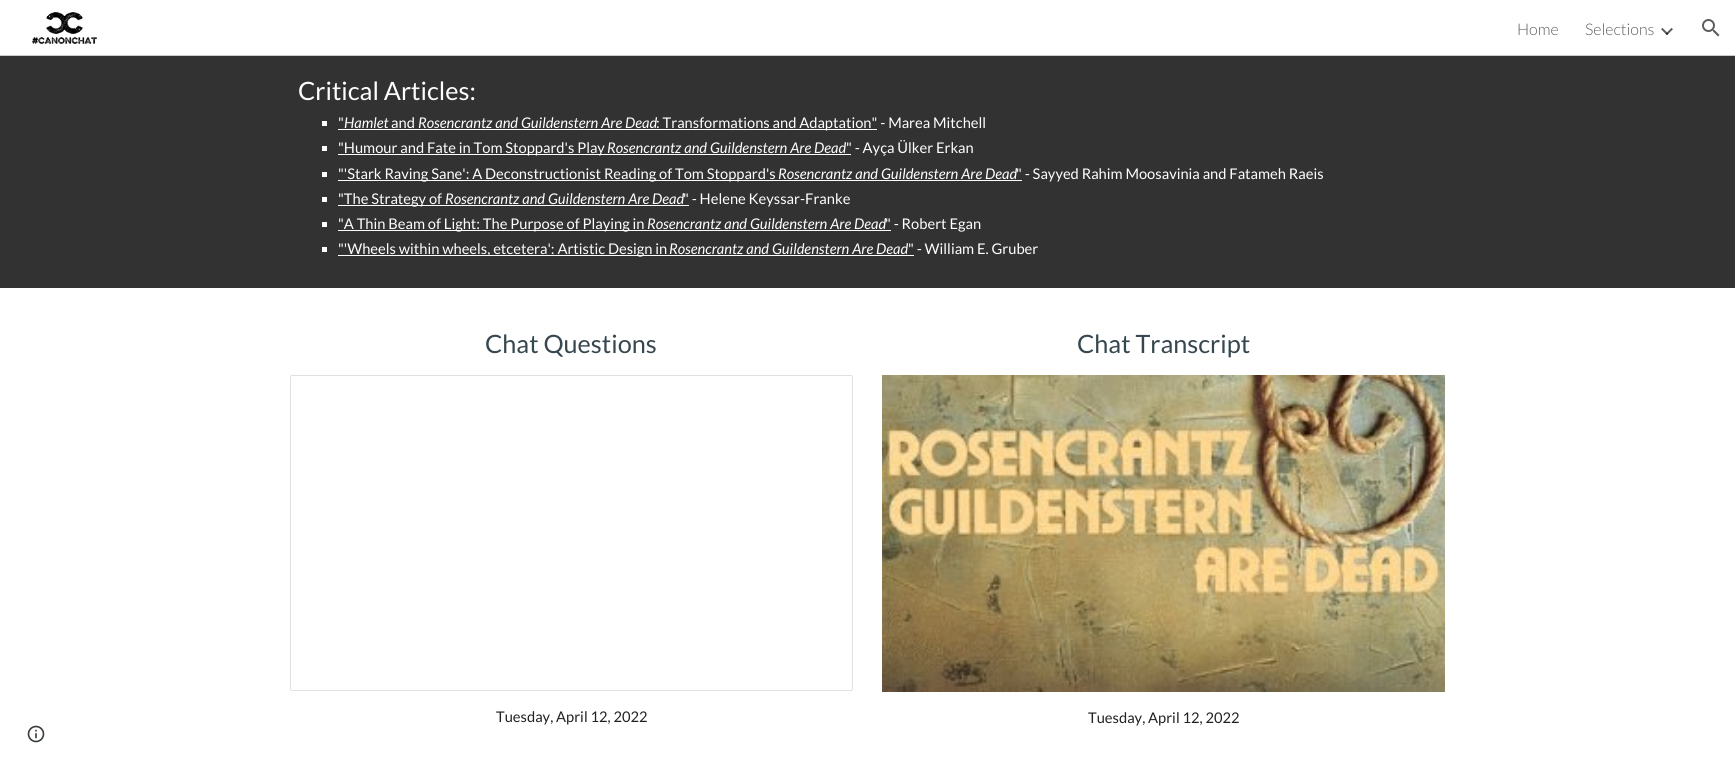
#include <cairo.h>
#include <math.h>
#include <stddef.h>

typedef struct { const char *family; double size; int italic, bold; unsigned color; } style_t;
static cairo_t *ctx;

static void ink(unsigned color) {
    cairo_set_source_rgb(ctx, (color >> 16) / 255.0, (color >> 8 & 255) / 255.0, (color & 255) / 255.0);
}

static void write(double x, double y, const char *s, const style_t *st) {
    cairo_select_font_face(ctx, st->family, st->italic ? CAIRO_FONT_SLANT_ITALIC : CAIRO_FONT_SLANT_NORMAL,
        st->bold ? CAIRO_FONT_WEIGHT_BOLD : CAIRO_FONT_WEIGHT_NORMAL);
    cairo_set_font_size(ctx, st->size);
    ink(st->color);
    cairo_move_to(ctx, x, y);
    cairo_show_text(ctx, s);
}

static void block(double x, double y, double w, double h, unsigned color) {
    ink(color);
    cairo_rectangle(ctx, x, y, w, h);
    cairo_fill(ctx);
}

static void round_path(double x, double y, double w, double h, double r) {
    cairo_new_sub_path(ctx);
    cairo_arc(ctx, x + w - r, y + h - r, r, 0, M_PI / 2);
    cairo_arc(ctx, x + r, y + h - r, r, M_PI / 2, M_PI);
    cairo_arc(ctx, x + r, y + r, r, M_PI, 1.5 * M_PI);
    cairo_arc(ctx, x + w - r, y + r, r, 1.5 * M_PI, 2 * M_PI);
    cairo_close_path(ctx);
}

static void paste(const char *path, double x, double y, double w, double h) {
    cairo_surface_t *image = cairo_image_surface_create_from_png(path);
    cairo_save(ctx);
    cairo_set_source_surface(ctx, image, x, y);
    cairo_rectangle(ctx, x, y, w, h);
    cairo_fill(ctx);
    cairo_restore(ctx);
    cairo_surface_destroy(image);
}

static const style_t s1 = {"Lato Light", 16, 0, 0, 0x5c5c5c};
static const style_t s2 = {"Lato", 25.25, 0, 0, 0xffffff};
static const style_t s3 = {"Lato", 14.7, 0, 0, 0xffffff};
static const style_t s4 = {"Lato", 14.7, 1, 0, 0xffffff};
static const style_t s5 = {"Lato", 25.25, 0, 0, 0x37474f};
static const style_t s6 = {"Lato", 14.7, 0, 0, 0x212121};

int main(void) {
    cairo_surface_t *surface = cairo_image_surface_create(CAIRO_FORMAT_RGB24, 1735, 768);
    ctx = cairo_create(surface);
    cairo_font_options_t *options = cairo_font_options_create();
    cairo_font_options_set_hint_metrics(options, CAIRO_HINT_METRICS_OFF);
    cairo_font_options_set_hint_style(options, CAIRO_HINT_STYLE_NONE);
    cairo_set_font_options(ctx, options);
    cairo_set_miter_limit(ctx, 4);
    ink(0xffffff);
    cairo_paint(ctx);
    paste("pic1.png", 32, 12, 65, 32);
    write(1517, 35, "Home", &s1);
    write(1585, 35, "Selections", &s1);
    paste("pic2.png", 1661, 27, 12, 8);
    paste("pic3.png", 1702, 19, 18, 18);
    block(0, 55, 1735, 1, 0xcccccc);
    block(0, 56, 1735, 232, 0x323232);
    write(298, 100, "Critical Articles:", &s2);
    block(322, 121, 5, 5, 0xffffff);
    write(338, 128, "\"", &s3);
    block(338, 129, 539, 1, 0xffffff);
    write(344, 128, "Hamlet", &s4);
    write(391, 128, "and", &s3);
    write(418, 128, "Rosencrantz and Guildenstern Are Dead", &s4);
    write(656, 128, ": Transformations and Adaptation\" - Marea Mitchell", &s3);
    block(322, 146, 5, 5, 0xffffff);
    block(338, 154, 513, 1, 0xffffff);
    write(338, 153, "\"Humour and Fate in Tom Stoppard's Play", &s3);
    write(607, 153, "Rosencrantz and Guildenstern Are Dead", &s4);
    write(846, 153, "\" - Ayça Ülker Erkan", &s3);
    block(322, 172, 5, 5, 0xffffff);
    block(338, 180, 684, 1, 0xffffff);
    write(338, 179, "\"'Stark Raving Sane': A Deconstructionist Reading of Tom Stoppard's", &s3);
    write(778, 179, "Rosencrantz and Guildenstern Are Dead", &s4);
    write(1016, 179, "\" - Sayyed Rahim Moosavinia and Fatameh Raeis", &s3);
    block(322, 197, 5, 5, 0xffffff);
    block(338, 205, 351, 1, 0xffffff);
    write(338, 204, "\"The Strategy of", &s3);
    write(445, 204, "Rosencrantz and Guildenstern Are Dead", &s4);
    write(683, 204, "\" - Helene Keyssar-Franke", &s3);
    block(322, 222, 5, 5, 0xffffff);
    block(338, 230, 553, 1, 0xffffff);
    write(338, 229, "\"A Thin Beam of Light: The Purpose of Playing in", &s3);
    write(647, 229, "Rosencrantz and Guildenstern Are Dead", &s4);
    write(885, 229, "\" - Robert Egan", &s3);
    block(322, 247, 5, 5, 0xffffff);
    block(338, 255, 576, 1, 0xffffff);
    write(338, 254, "\"'Wheels within wheels, etcetera': Artistic Design in", &s3);
    write(669, 254, "Rosencrantz and Guildenstern Are Dead", &s4);
    write(908, 254, "\" - William E. Gruber", &s3);
    write(485, 353, "Chat Questions", &s5);
    round_path(290.5, 375.5, 562, 315, 1.5);
    ink(0xe0e0e0);
    cairo_set_line_width(ctx, 1);
    cairo_stroke(ctx);
    write(496, 722, "Tuesday, April 12, 2022", &s6);
    write(1077, 353, "Chat Transcript", &s5);
    paste("pic4.png", 882, 375, 563, 317);
    write(1088, 723, "Tuesday, April 12, 2022", &s6);
    paste("pic5.png", 27, 725, 18, 18);
    cairo_surface_write_to_png(surface, "screenshot.png");
    cairo_font_options_destroy(options);
    cairo_destroy(ctx);
    cairo_surface_destroy(surface);
    return 0;
}
